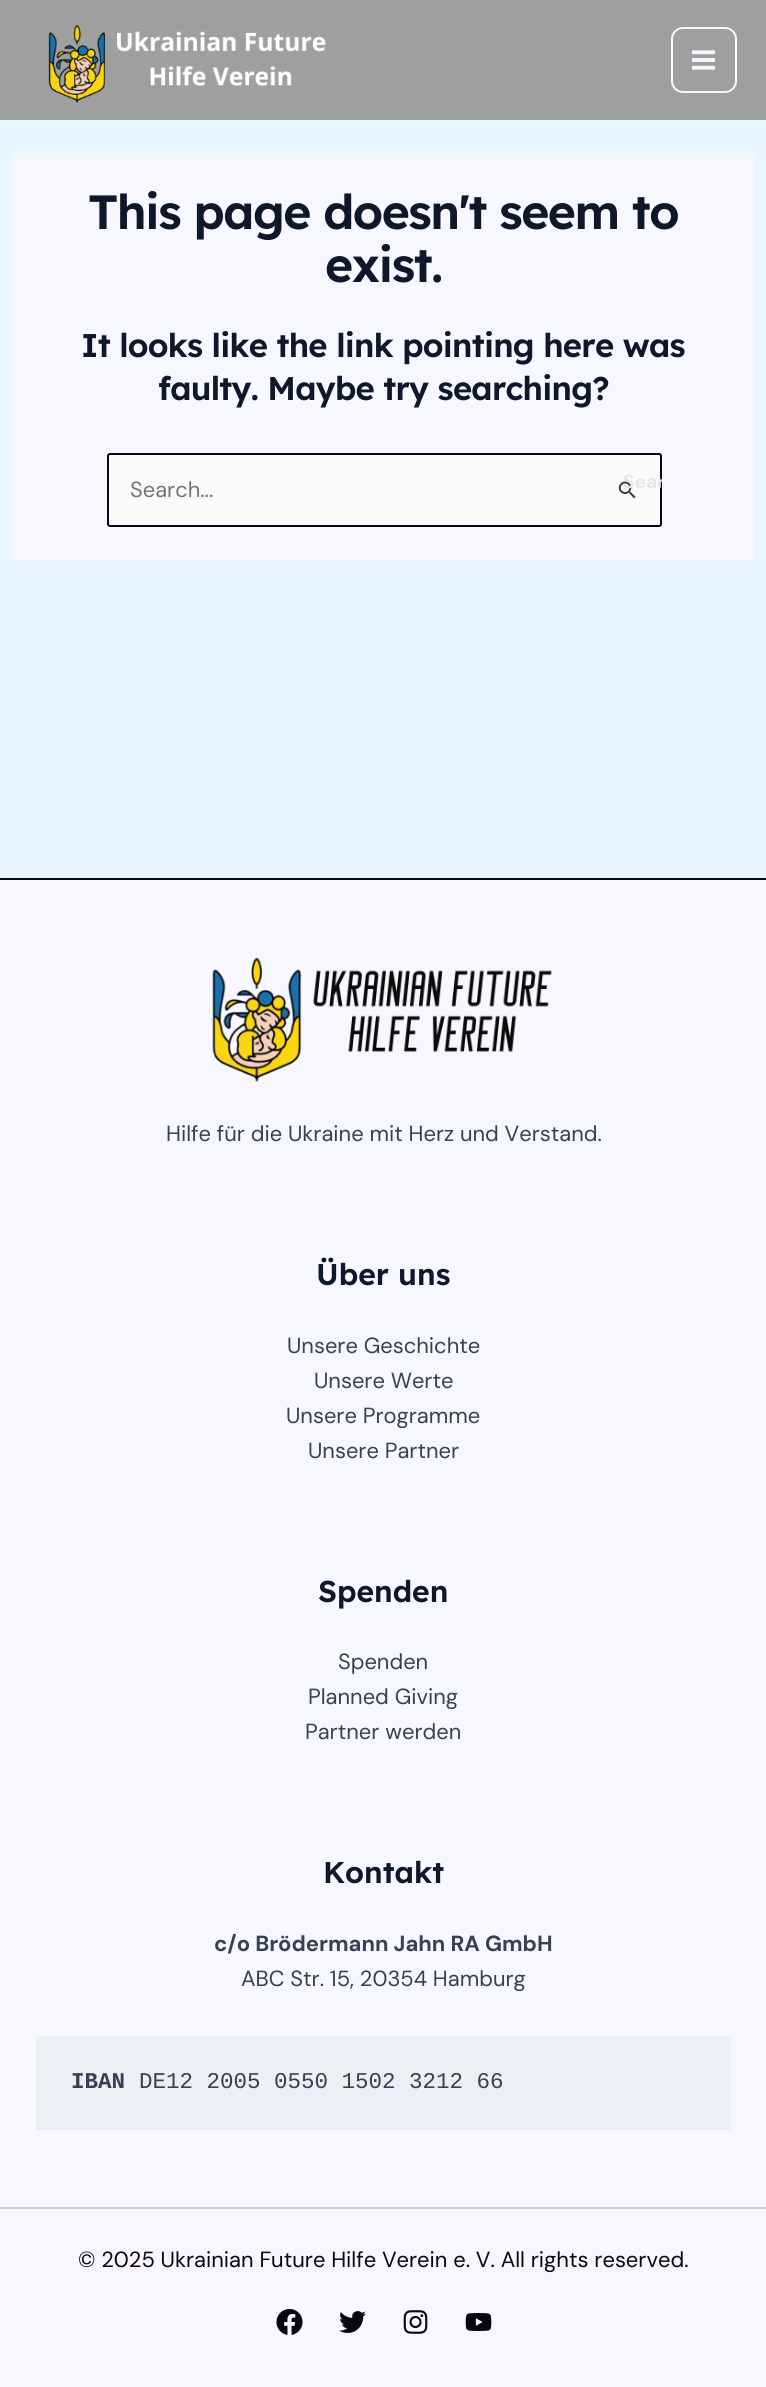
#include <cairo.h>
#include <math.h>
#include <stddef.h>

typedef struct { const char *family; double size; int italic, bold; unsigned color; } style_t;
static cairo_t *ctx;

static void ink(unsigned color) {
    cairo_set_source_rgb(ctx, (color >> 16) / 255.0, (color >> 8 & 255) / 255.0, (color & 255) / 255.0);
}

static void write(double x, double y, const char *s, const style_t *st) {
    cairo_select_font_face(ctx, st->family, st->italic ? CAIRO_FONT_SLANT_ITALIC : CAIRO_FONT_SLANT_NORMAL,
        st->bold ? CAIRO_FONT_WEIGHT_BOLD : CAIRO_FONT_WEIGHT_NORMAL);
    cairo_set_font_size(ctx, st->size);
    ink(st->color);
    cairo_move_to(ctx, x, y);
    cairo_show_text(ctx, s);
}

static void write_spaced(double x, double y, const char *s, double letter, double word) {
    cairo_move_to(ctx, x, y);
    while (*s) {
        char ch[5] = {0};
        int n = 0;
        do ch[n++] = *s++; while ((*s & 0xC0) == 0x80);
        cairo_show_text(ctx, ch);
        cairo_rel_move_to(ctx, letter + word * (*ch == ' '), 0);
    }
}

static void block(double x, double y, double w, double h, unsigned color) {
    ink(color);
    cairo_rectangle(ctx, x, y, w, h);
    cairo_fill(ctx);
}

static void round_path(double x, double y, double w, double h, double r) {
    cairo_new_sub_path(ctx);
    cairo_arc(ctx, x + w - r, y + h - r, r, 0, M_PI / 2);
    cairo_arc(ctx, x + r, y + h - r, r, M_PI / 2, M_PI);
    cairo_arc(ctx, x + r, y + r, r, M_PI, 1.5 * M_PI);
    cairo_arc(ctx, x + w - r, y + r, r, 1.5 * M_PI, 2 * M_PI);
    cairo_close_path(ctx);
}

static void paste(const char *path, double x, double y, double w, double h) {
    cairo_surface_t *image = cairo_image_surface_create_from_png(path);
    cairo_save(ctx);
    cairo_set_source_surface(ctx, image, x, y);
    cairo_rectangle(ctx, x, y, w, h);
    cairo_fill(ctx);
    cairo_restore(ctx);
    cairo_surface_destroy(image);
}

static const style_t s1 = {"DM Sans", 21.9, 0, 0, 0x757575};
static const style_t s2 = {"DM Sans", 19, 0, 1, 0xe6e6e6};
static const style_t s3 = {"DM Sans", 21.9, 0, 0, 0x364151};
static const style_t s4 = {"Lexend SemiBold", 30, 0, 0, 0x0f172a};
static const style_t s5 = {"DM Sans", 21.9, 0, 1, 0x364151};
static const style_t s6 = {"Liberation Mono", 22.5, 0, 1, 0x364151};
static const style_t s7 = {"Liberation Mono", 22.5, 0, 0, 0x364151};
static const style_t s8 = {"DM Sans", 21.9, 0, 0, 0x070614};

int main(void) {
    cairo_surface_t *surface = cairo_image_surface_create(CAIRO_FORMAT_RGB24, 766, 2387);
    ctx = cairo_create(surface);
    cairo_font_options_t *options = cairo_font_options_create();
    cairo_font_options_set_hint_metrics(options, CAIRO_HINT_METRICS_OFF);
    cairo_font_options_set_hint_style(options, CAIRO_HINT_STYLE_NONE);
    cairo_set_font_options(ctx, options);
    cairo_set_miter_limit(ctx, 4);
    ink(0xe7f6ff);
    cairo_paint(ctx);
    block(0, 0, 766, 120, 0x9f9f9f);
    paste("pic1.png", 48, 25, 278, 78);
    round_path(672, 28, 64, 64, 11);
    ink(0xf7f7ff);
    cairo_stroke(ctx);
    paste("pic2.png", 691, 50, 25, 20);
    block(12, 153, 743, 407, 0xf7f7ff);
    cairo_select_font_face(ctx, "Lexend SemiBold", CAIRO_FONT_SLANT_NORMAL, CAIRO_FONT_WEIGHT_NORMAL);
    cairo_set_font_size(ctx, 48);
    ink(0x0f172a);
    write_spaced(88, 229, "This page doesn't seem to", -1.5, 0);
    write_spaced(325, 282, "exist.", -1.5, 0);
    cairo_set_font_size(ctx, 32.8);
    write_spaced(81, 357, "It looks like the link pointing here was", -0.75, 0);
    write_spaced(158, 400, "faulty. Maybe try searching?", -0.75, 0);
    ink(0xfafafa);
    round_path(108, 454, 553, 72, 2);
    cairo_fill_preserve(ctx);
    ink(0x070614);
    cairo_stroke(ctx);
    write(130, 497, "Search...", &s1);
    paste("pic3.png", 618, 481, 18, 18);
    cairo_save(ctx);
    round_path(594, 453, 68, 59, 3);
    cairo_clip(ctx);
    write(623, 488, "Sear", &s2);
    cairo_restore(ctx);
    block(0, 880, 766, 1327, 0xf7f7ff);
    block(0, 878, 766, 2, 0x070614);
    paste("pic4.png", 212, 957, 340, 125);
    write(166, 1141, "Hilfe für die Ukraine mit Herz und Verstand.", &s3);
    write(316, 1285, "Über uns", &s4);
    write(287, 1353, "Unsere Geschichte", &s3);
    write(314, 1388, "Unsere Werte", &s3);
    write(286, 1423, "Unsere Programme", &s3);
    write(308, 1458, "Unsere Partner", &s3);
    write(318, 1602, "Spenden", &s4);
    write(338, 1669, "Spenden", &s3);
    write(308, 1704, "Planned Giving", &s3);
    write(305, 1739, "Partner werden", &s3);
    write(323, 1883, "Kontakt", &s4);
    write(214, 1951, "c/o Brödermann Jahn RA GmbH", &s5);
    write(241, 1986, "ABC Str. 15, 20354 Hamburg", &s3);
    block(36, 2036, 695, 94, 0xeceff3);
    write(71, 2088, "IBAN", &s6);
    write(139, 2088, "DE12 2005 0550 1502 3212 66", &s7);
    block(0, 2209, 766, 178, 0xf7f7ff);
    block(0, 2207, 766, 2, 0xcdd0cb);
    write(78, 2267, "© 2025 Ukrainian Future Hilfe Verein e. V. All rights reserved.", &s8);
    paste("pic5.png", 276, 2309, 27, 26);
    paste("pic6.png", 339, 2311, 27, 22);
    paste("pic7.png", 403, 2310, 25, 24);
    paste("pic8.png", 465, 2313, 27, 18);
    cairo_surface_write_to_png(surface, "screenshot.png");
    cairo_font_options_destroy(options);
    cairo_destroy(ctx);
    cairo_surface_destroy(surface);
    return 0;
}
